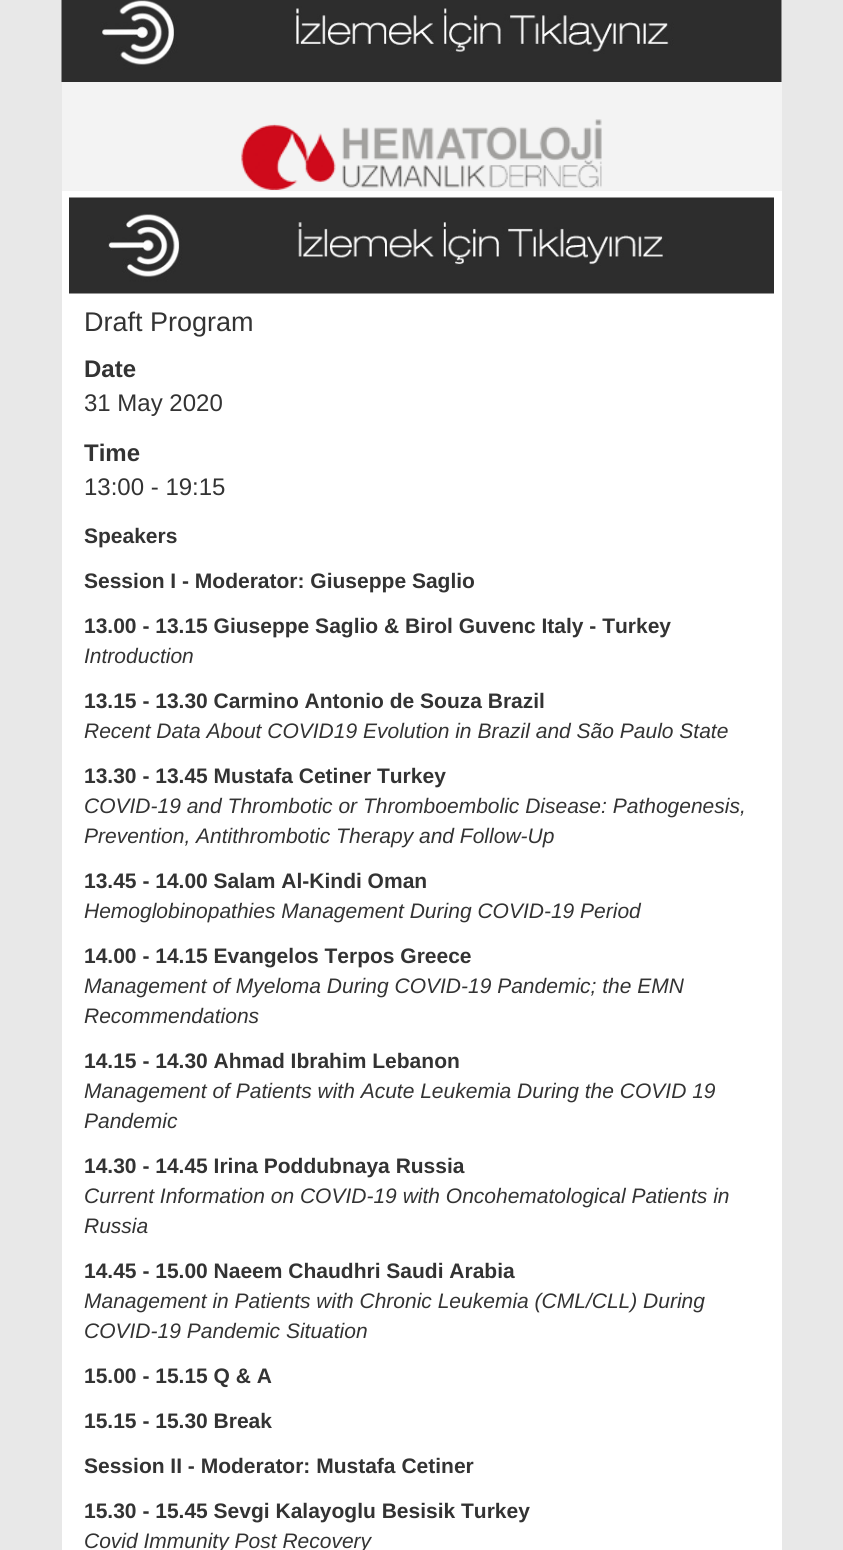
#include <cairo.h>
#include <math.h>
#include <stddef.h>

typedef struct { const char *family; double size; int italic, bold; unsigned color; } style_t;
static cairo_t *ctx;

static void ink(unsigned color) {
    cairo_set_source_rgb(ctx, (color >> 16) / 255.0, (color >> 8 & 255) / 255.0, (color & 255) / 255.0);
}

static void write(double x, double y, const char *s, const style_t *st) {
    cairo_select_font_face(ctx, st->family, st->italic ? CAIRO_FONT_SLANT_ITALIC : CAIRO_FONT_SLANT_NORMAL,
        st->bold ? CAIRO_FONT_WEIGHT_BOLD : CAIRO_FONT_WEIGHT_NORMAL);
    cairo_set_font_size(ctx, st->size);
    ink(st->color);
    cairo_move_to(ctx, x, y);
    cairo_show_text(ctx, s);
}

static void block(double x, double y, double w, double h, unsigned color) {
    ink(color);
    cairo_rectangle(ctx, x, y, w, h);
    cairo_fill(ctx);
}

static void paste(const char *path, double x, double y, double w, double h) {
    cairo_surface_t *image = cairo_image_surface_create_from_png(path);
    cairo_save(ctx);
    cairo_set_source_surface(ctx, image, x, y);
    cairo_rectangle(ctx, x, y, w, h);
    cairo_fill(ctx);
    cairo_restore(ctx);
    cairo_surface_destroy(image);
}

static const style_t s1 = {"Liberation Sans", 27, 0, 0, 0x333333};
static const style_t s2 = {"Liberation Sans", 24, 0, 1, 0x333333};
static const style_t s3 = {"Liberation Sans", 24, 0, 0, 0x333333};
static const style_t s4 = {"Liberation Sans", 21, 0, 1, 0x333333};
static const style_t s5 = {"Liberation Sans", 21, 1, 0, 0x333333};

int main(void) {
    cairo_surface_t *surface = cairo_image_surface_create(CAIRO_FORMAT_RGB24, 843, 1550);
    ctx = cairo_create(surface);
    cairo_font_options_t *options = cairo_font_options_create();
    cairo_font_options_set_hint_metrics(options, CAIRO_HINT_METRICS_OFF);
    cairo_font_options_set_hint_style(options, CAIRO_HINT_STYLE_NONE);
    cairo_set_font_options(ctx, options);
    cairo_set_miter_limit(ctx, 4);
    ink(0xe8e8e8);
    cairo_paint(ctx);
    block(62, 0, 720, 191, 0xf3f3f3);
    paste("pic1.png", 61, 0, 721, 82);
    paste("pic2.png", 241, 119, 361, 71);
    block(62, 191, 720, 1359, 0xffffff);
    paste("pic3.png", 69, 197, 705, 97);
    write(84, 331, "Draft Program", &s1);
    write(84, 377, "Date", &s2);
    write(84, 411, "31 May 2020", &s3);
    write(84, 461, "Time", &s2);
    write(84, 495, "13:00 - 19:15", &s3);
    write(84, 543, "Speakers", &s4);
    write(84, 588, "Session I - Moderator: Giuseppe Saglio", &s4);
    write(84, 633, "13.00 - 13.15 Giuseppe Saglio & Birol Guvenc Italy - Turkey", &s4);
    write(84, 663, "Introduction", &s5);
    write(84, 708, "13.15 - 13.30 Carmino Antonio de Souza Brazil", &s4);
    write(84, 738, "Recent Data About COVID19 Evolution in Brazil and São Paulo State", &s5);
    write(84, 783, "13.30 - 13.45 Mustafa Cetiner Turkey", &s4);
    write(84, 813, "COVID-19 and Thrombotic or Thromboembolic Disease: Pathogenesis,", &s5);
    write(84, 843, "Prevention, Antithrombotic Therapy and Follow-Up", &s5);
    write(84, 888, "13.45 - 14.00 Salam Al-Kindi Oman", &s4);
    write(84, 918, "Hemoglobinopathies Management During COVID-19 Period", &s5);
    write(84, 963, "14.00 - 14.15 Evangelos Terpos Greece", &s4);
    write(84, 993, "Management of Myeloma During COVID-19 Pandemic; the EMN", &s5);
    write(84, 1023, "Recommendations", &s5);
    write(84, 1068, "14.15 - 14.30 Ahmad Ibrahim Lebanon", &s4);
    write(84, 1098, "Management of Patients with Acute Leukemia During the COVID 19", &s5);
    write(84, 1128, "Pandemic", &s5);
    write(84, 1173, "14.30 - 14.45 Irina Poddubnaya Russia", &s4);
    write(84, 1203, "Current Information on COVID-19 with Oncohematological Patients in", &s5);
    write(84, 1233, "Russia", &s5);
    write(84, 1278, "14.45 - 15.00 Naeem Chaudhri Saudi Arabia", &s4);
    write(84, 1308, "Management in Patients with Chronic Leukemia (CML/CLL) During", &s5);
    write(84, 1338, "COVID-19 Pandemic Situation", &s5);
    write(84, 1383, "15.00 - 15.15 Q & A", &s4);
    write(84, 1428, "15.15 - 15.30 Break", &s4);
    write(84, 1473, "Session II - Moderator: Mustafa Cetiner", &s4);
    write(84, 1518, "15.30 - 15.45 Sevgi Kalayoglu Besisik Turkey", &s4);
    write(84, 1548, "Covid Immunity Post Recovery", &s5);
    cairo_surface_write_to_png(surface, "screenshot.png");
    cairo_font_options_destroy(options);
    cairo_destroy(ctx);
    cairo_surface_destroy(surface);
    return 0;
}
